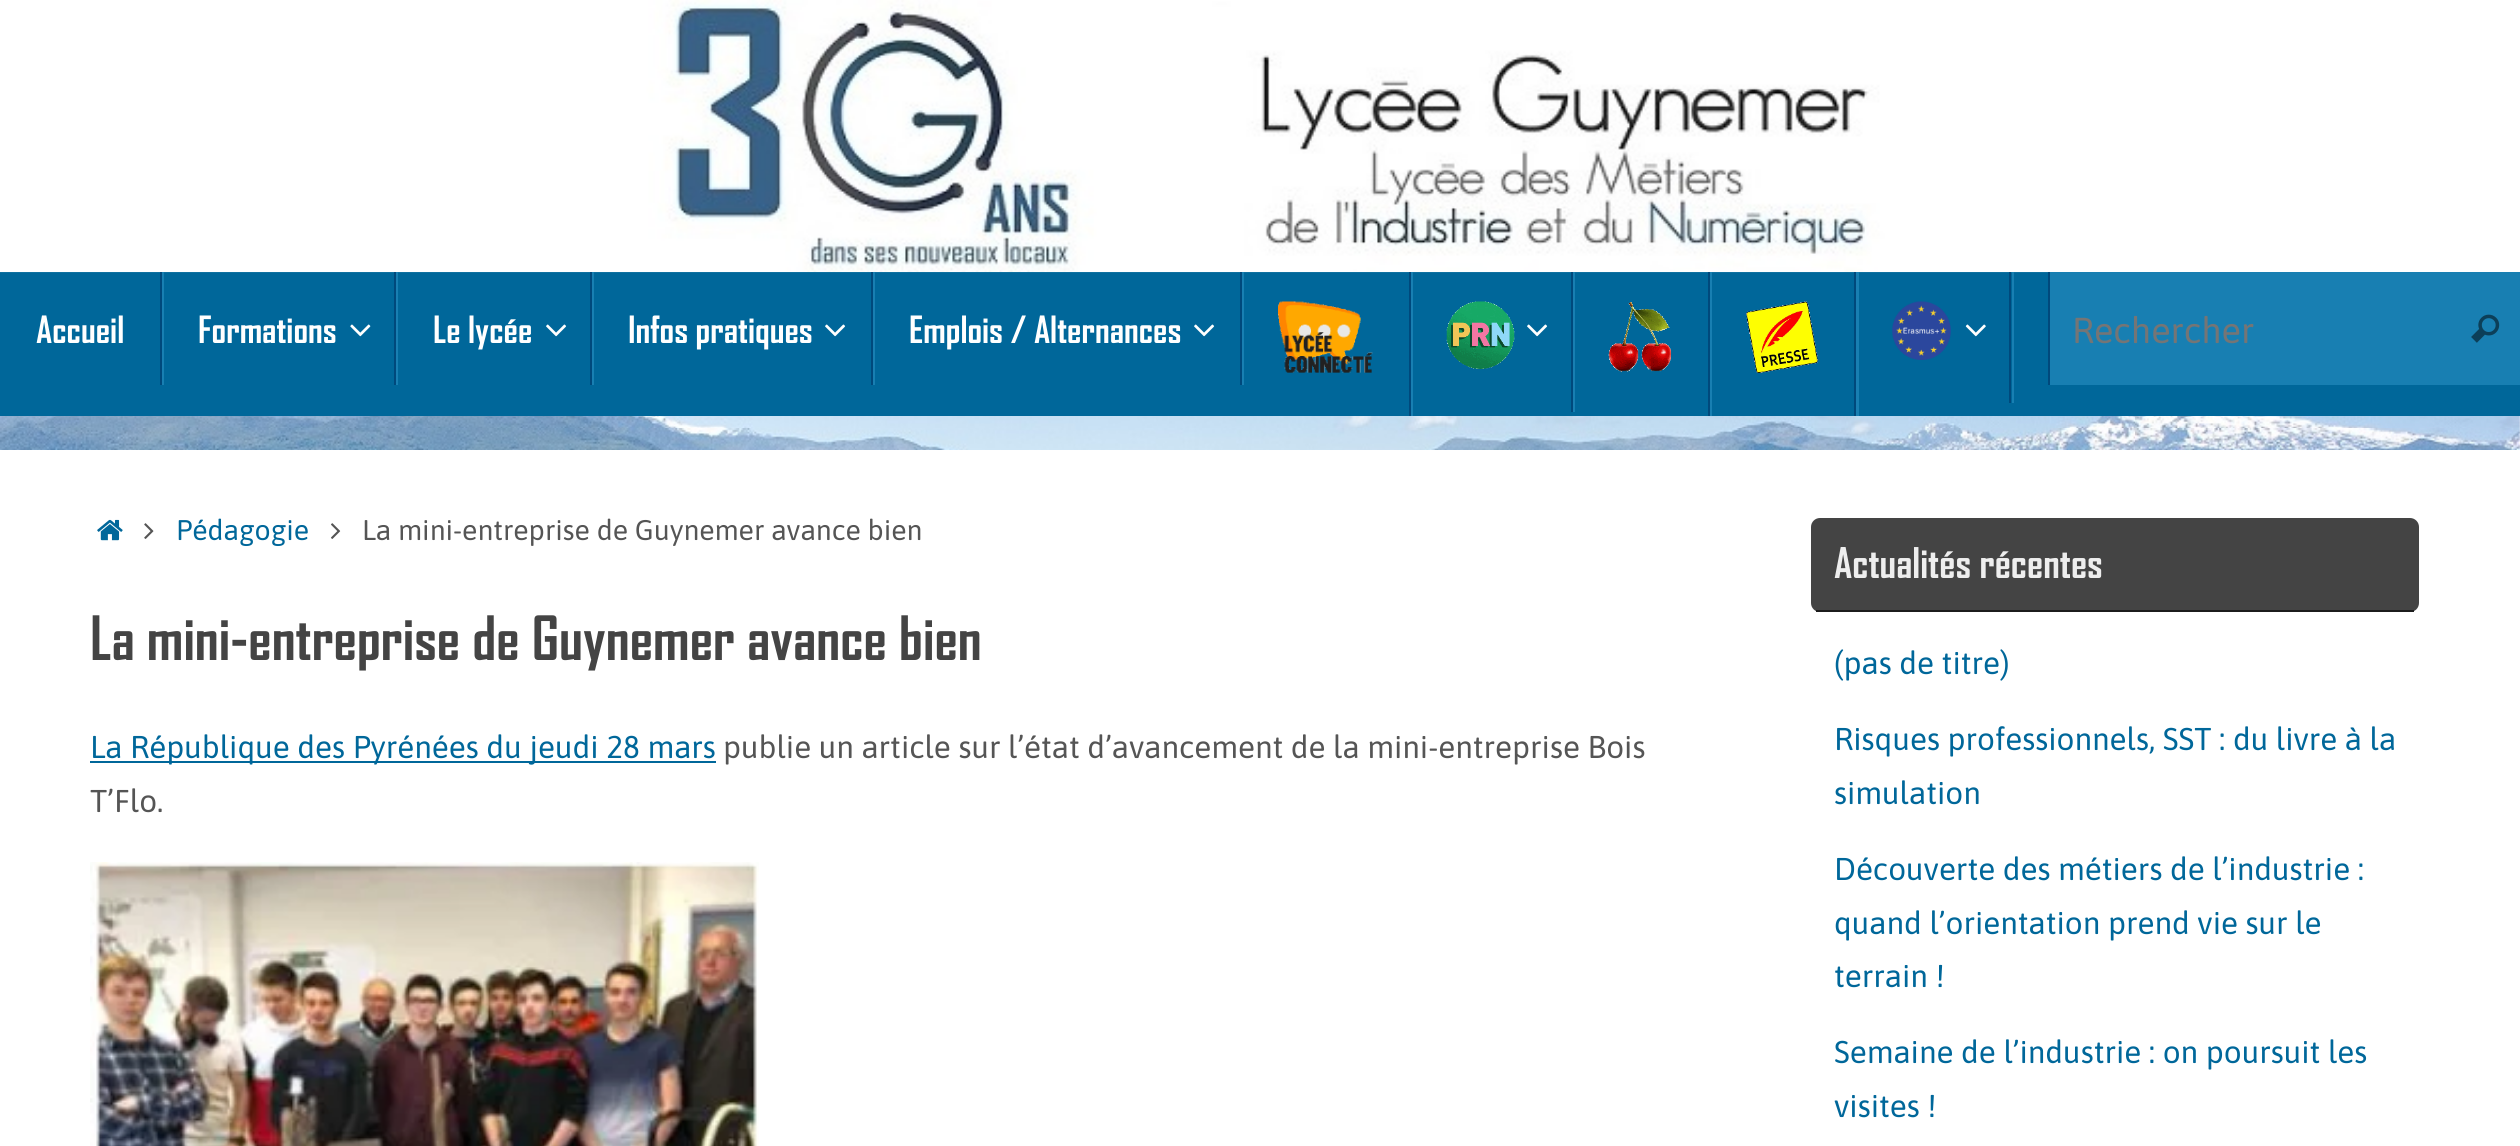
#include <cairo.h>
#include <math.h>
#include <stddef.h>

typedef struct { const char *family; double size; int italic, bold; unsigned color; } style_t;
static cairo_t *ctx;

static void ink(unsigned color) {
    cairo_set_source_rgb(ctx, (color >> 16) / 255.0, (color >> 8 & 255) / 255.0, (color & 255) / 255.0);
}

static void write(double x, double y, const char *s, const style_t *st) {
    cairo_select_font_face(ctx, st->family, st->italic ? CAIRO_FONT_SLANT_ITALIC : CAIRO_FONT_SLANT_NORMAL,
        st->bold ? CAIRO_FONT_WEIGHT_BOLD : CAIRO_FONT_WEIGHT_NORMAL);
    cairo_set_font_size(ctx, st->size);
    ink(st->color);
    cairo_move_to(ctx, x, y);
    cairo_show_text(ctx, s);
}

static void block(double x, double y, double w, double h, unsigned color) {
    ink(color);
    cairo_rectangle(ctx, x, y, w, h);
    cairo_fill(ctx);
}

static void round_path(double x, double y, double w, double h, double r) {
    cairo_new_sub_path(ctx);
    cairo_arc(ctx, x + w - r, y + h - r, r, 0, M_PI / 2);
    cairo_arc(ctx, x + r, y + h - r, r, M_PI / 2, M_PI);
    cairo_arc(ctx, x + r, y + r, r, M_PI, 1.5 * M_PI);
    cairo_arc(ctx, x + w - r, y + r, r, 1.5 * M_PI, 2 * M_PI);
    cairo_close_path(ctx);
}

static void paste(const char *path, double x, double y, double w, double h) {
    cairo_surface_t *image = cairo_image_surface_create_from_png(path);
    cairo_save(ctx);
    cairo_set_source_surface(ctx, image, x, y);
    cairo_rectangle(ctx, x, y, w, h);
    cairo_fill(ctx);
    cairo_restore(ctx);
    cairo_surface_destroy(image);
}

static const style_t s1 = {"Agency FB", 36, 0, 1, 0xffffff};
static const style_t s2 = {"Asap", 36, 0, 0, 0x757575};
static const style_t s3 = {"Asap", 28.4, 0, 0, 0x00679a};
static const style_t s4 = {"Asap", 28.4, 0, 0, 0x555555};
static const style_t s5 = {"Agency FB", 58.5, 0, 1, 0x444444};
static const style_t s6 = {"Asap", 31.5, 0, 0, 0x00679a};
static const style_t s7 = {"Asap", 31.5, 0, 0, 0x555555};
static const style_t s8 = {"Agency FB", 40.5, 0, 1, 0xeeeeee};

int main(void) {
    cairo_surface_t *surface = cairo_image_surface_create(CAIRO_FORMAT_RGB24, 2520, 1146);
    ctx = cairo_create(surface);
    cairo_font_options_t *options = cairo_font_options_create();
    cairo_font_options_set_hint_metrics(options, CAIRO_HINT_METRICS_OFF);
    cairo_font_options_set_hint_style(options, CAIRO_HINT_STYLE_NONE);
    cairo_set_font_options(ctx, options);
    cairo_set_miter_limit(ctx, 4);
    ink(0xffffff);
    cairo_paint(ctx);
    paste("pic1.png", 0, 416, 2520, 34);
    block(0, 272, 2520, 144, 0x00679a);
    paste("pic2.png", 0, 0, 2520, 273);
    ink(0x187fb2);
    cairo_new_path(ctx);
    cairo_move_to(ctx, 2, 272);
    cairo_line_to(ctx, 162, 272);
    cairo_line_to(ctx, 162, 385);
    cairo_line_to(ctx, 2, 385);
    cairo_line_to(ctx, 164, 385);
    cairo_line_to(ctx, 164, 272);
    cairo_close_path(ctx);
    cairo_fill(ctx);
    block(160, 272, 2, 113, 0x00497c);
    write(36, 343, "Accueil", &s1);
    ink(0x187fb2);
    cairo_new_path(ctx);
    cairo_move_to(ctx, 164, 272);
    cairo_line_to(ctx, 396, 272);
    cairo_line_to(ctx, 396, 385);
    cairo_line_to(ctx, 164, 385);
    cairo_line_to(ctx, 398, 385);
    cairo_line_to(ctx, 398, 272);
    cairo_close_path(ctx);
    cairo_fill(ctx);
    block(394, 272, 2, 113, 0x00497c);
    write(198, 343, "Formations", &s1);
    paste("pic3.png", 350, 324, 21, 13);
    ink(0x187fb2);
    cairo_new_path(ctx);
    cairo_move_to(ctx, 398, 272);
    cairo_line_to(ctx, 592, 272);
    cairo_line_to(ctx, 592, 385);
    cairo_line_to(ctx, 398, 385);
    cairo_line_to(ctx, 594, 385);
    cairo_line_to(ctx, 594, 272);
    cairo_close_path(ctx);
    cairo_fill(ctx);
    block(590, 272, 2, 113, 0x00497c);
    write(433, 343, "Le lycée", &s1);
    paste("pic4.png", 546, 324, 21, 13);
    ink(0x187fb2);
    cairo_new_path(ctx);
    cairo_move_to(ctx, 594, 272);
    cairo_line_to(ctx, 873, 272);
    cairo_line_to(ctx, 873, 385);
    cairo_line_to(ctx, 594, 385);
    cairo_line_to(ctx, 875, 385);
    cairo_line_to(ctx, 875, 272);
    cairo_close_path(ctx);
    cairo_fill(ctx);
    block(871, 272, 2, 113, 0x00497c);
    write(628, 343, "Infos pratiques", &s1);
    paste("pic4.png", 825, 324, 21, 13);
    ink(0x187fb2);
    cairo_new_path(ctx);
    cairo_move_to(ctx, 875, 272);
    cairo_line_to(ctx, 1242, 272);
    cairo_line_to(ctx, 1242, 385);
    cairo_line_to(ctx, 875, 385);
    cairo_line_to(ctx, 1244, 385);
    cairo_line_to(ctx, 1244, 272);
    cairo_close_path(ctx);
    cairo_fill(ctx);
    block(1240, 272, 2, 113, 0x00497c);
    write(909, 343, "Emplois / Alternances", &s1);
    paste("pic4.png", 1194, 324, 21, 13);
    ink(0x187fb2);
    cairo_new_path(ctx);
    cairo_move_to(ctx, 1244, 272);
    cairo_line_to(ctx, 1411, 272);
    cairo_line_to(ctx, 1411, 416);
    cairo_line_to(ctx, 1413, 416);
    cairo_line_to(ctx, 1413, 272);
    cairo_close_path(ctx);
    cairo_fill(ctx);
    block(1409, 272, 2, 144, 0x00497c);
    paste("pic5.png", 1278, 301, 95, 72);
    ink(0x187fb2);
    cairo_new_path(ctx);
    cairo_move_to(ctx, 1413, 272);
    cairo_line_to(ctx, 1573, 272);
    cairo_line_to(ctx, 1573, 412);
    cairo_line_to(ctx, 1413, 412);
    cairo_line_to(ctx, 1575, 412);
    cairo_line_to(ctx, 1575, 272);
    cairo_close_path(ctx);
    cairo_fill(ctx);
    block(1571, 272, 2, 140, 0x00497c);
    paste("pic6.png", 1446, 301, 69, 68);
    paste("pic4.png", 1527, 324, 21, 13);
    ink(0x187fb2);
    cairo_new_path(ctx);
    cairo_move_to(ctx, 1575, 272);
    cairo_line_to(ctx, 1710, 272);
    cairo_line_to(ctx, 1710, 416);
    cairo_line_to(ctx, 1712, 416);
    cairo_line_to(ctx, 1712, 272);
    cairo_close_path(ctx);
    cairo_fill(ctx);
    block(1708, 272, 2, 144, 0x00497c);
    paste("pic7.png", 1608, 302, 63, 70);
    ink(0x187fb2);
    cairo_new_path(ctx);
    cairo_move_to(ctx, 1712, 272);
    cairo_line_to(ctx, 1856, 272);
    cairo_line_to(ctx, 1856, 416);
    cairo_line_to(ctx, 1859, 416);
    cairo_line_to(ctx, 1859, 272);
    cairo_close_path(ctx);
    cairo_fill(ctx);
    block(1854, 272, 2, 144, 0x00497c);
    paste("pic8.png", 1746, 301, 72, 72);
    ink(0x187fb2);
    cairo_new_path(ctx);
    cairo_move_to(ctx, 1859, 272);
    cairo_line_to(ctx, 2012, 272);
    cairo_line_to(ctx, 2012, 403);
    cairo_line_to(ctx, 1859, 403);
    cairo_line_to(ctx, 2014, 403);
    cairo_line_to(ctx, 2014, 272);
    cairo_close_path(ctx);
    cairo_fill(ctx);
    block(2009, 272, 2, 131, 0x00497c);
    paste("pic9.png", 1892, 301, 59, 59);
    paste("pic10.png", 1965, 324, 21, 13);
    block(2050, 272, 470, 113, 0x187fb2);
    block(2048, 272, 2, 113, 0x00497c);
    write(2072, 343, "Rechercher", &s2);
    paste("pic11.png", 2471, 314, 29, 29);
    paste("pic12.png", 97, 519, 26, 22);
    paste("pic13.png", 144, 523, 10, 16);
    write(176, 540, "Pédagogie", &s3);
    paste("pic14.png", 331, 523, 10, 16);
    write(362, 540, "La mini-entreprise de Guynemer avance bien", &s4);
    write(90, 660, "La mini-entreprise de Guynemer avance bien", &s5);
    block(90, 761, 626, 2, 0x00679a);
    write(90, 758, "La République des Pyrénées du jeudi 28 mars", &s6);
    write(723, 758, "publie un article sur l’état d’avancement de la mini-entreprise Bois", &s7);
    write(90, 812, "T’Flo.", &s7);
    paste("pic15.png", 90, 862, 669, 284);
    ink(0x444444);
    round_path(1811, 518, 608, 94, 9);
    cairo_fill(ctx);
    block(1816, 610, 598, 2, 0x1c1c1c);
    write(1834, 578, "Actualités récentes", &s8);
    write(1834, 674, "(pas de titre)", &s6);
    write(1834, 750, "Risques professionnels, SST : du livre à la", &s6);
    write(1834, 804, "simulation", &s6);
    write(1834, 880, "Découverte des métiers de l’industrie :", &s6);
    write(1834, 934, "quand l’orientation prend vie sur le", &s6);
    write(1834, 987, "terrain !", &s6);
    write(1834, 1063, "Semaine de l’industrie : on poursuit les", &s6);
    write(1834, 1117, "visites !", &s6);
    cairo_surface_write_to_png(surface, "screenshot.png");
    cairo_font_options_destroy(options);
    cairo_destroy(ctx);
    cairo_surface_destroy(surface);
    return 0;
}
